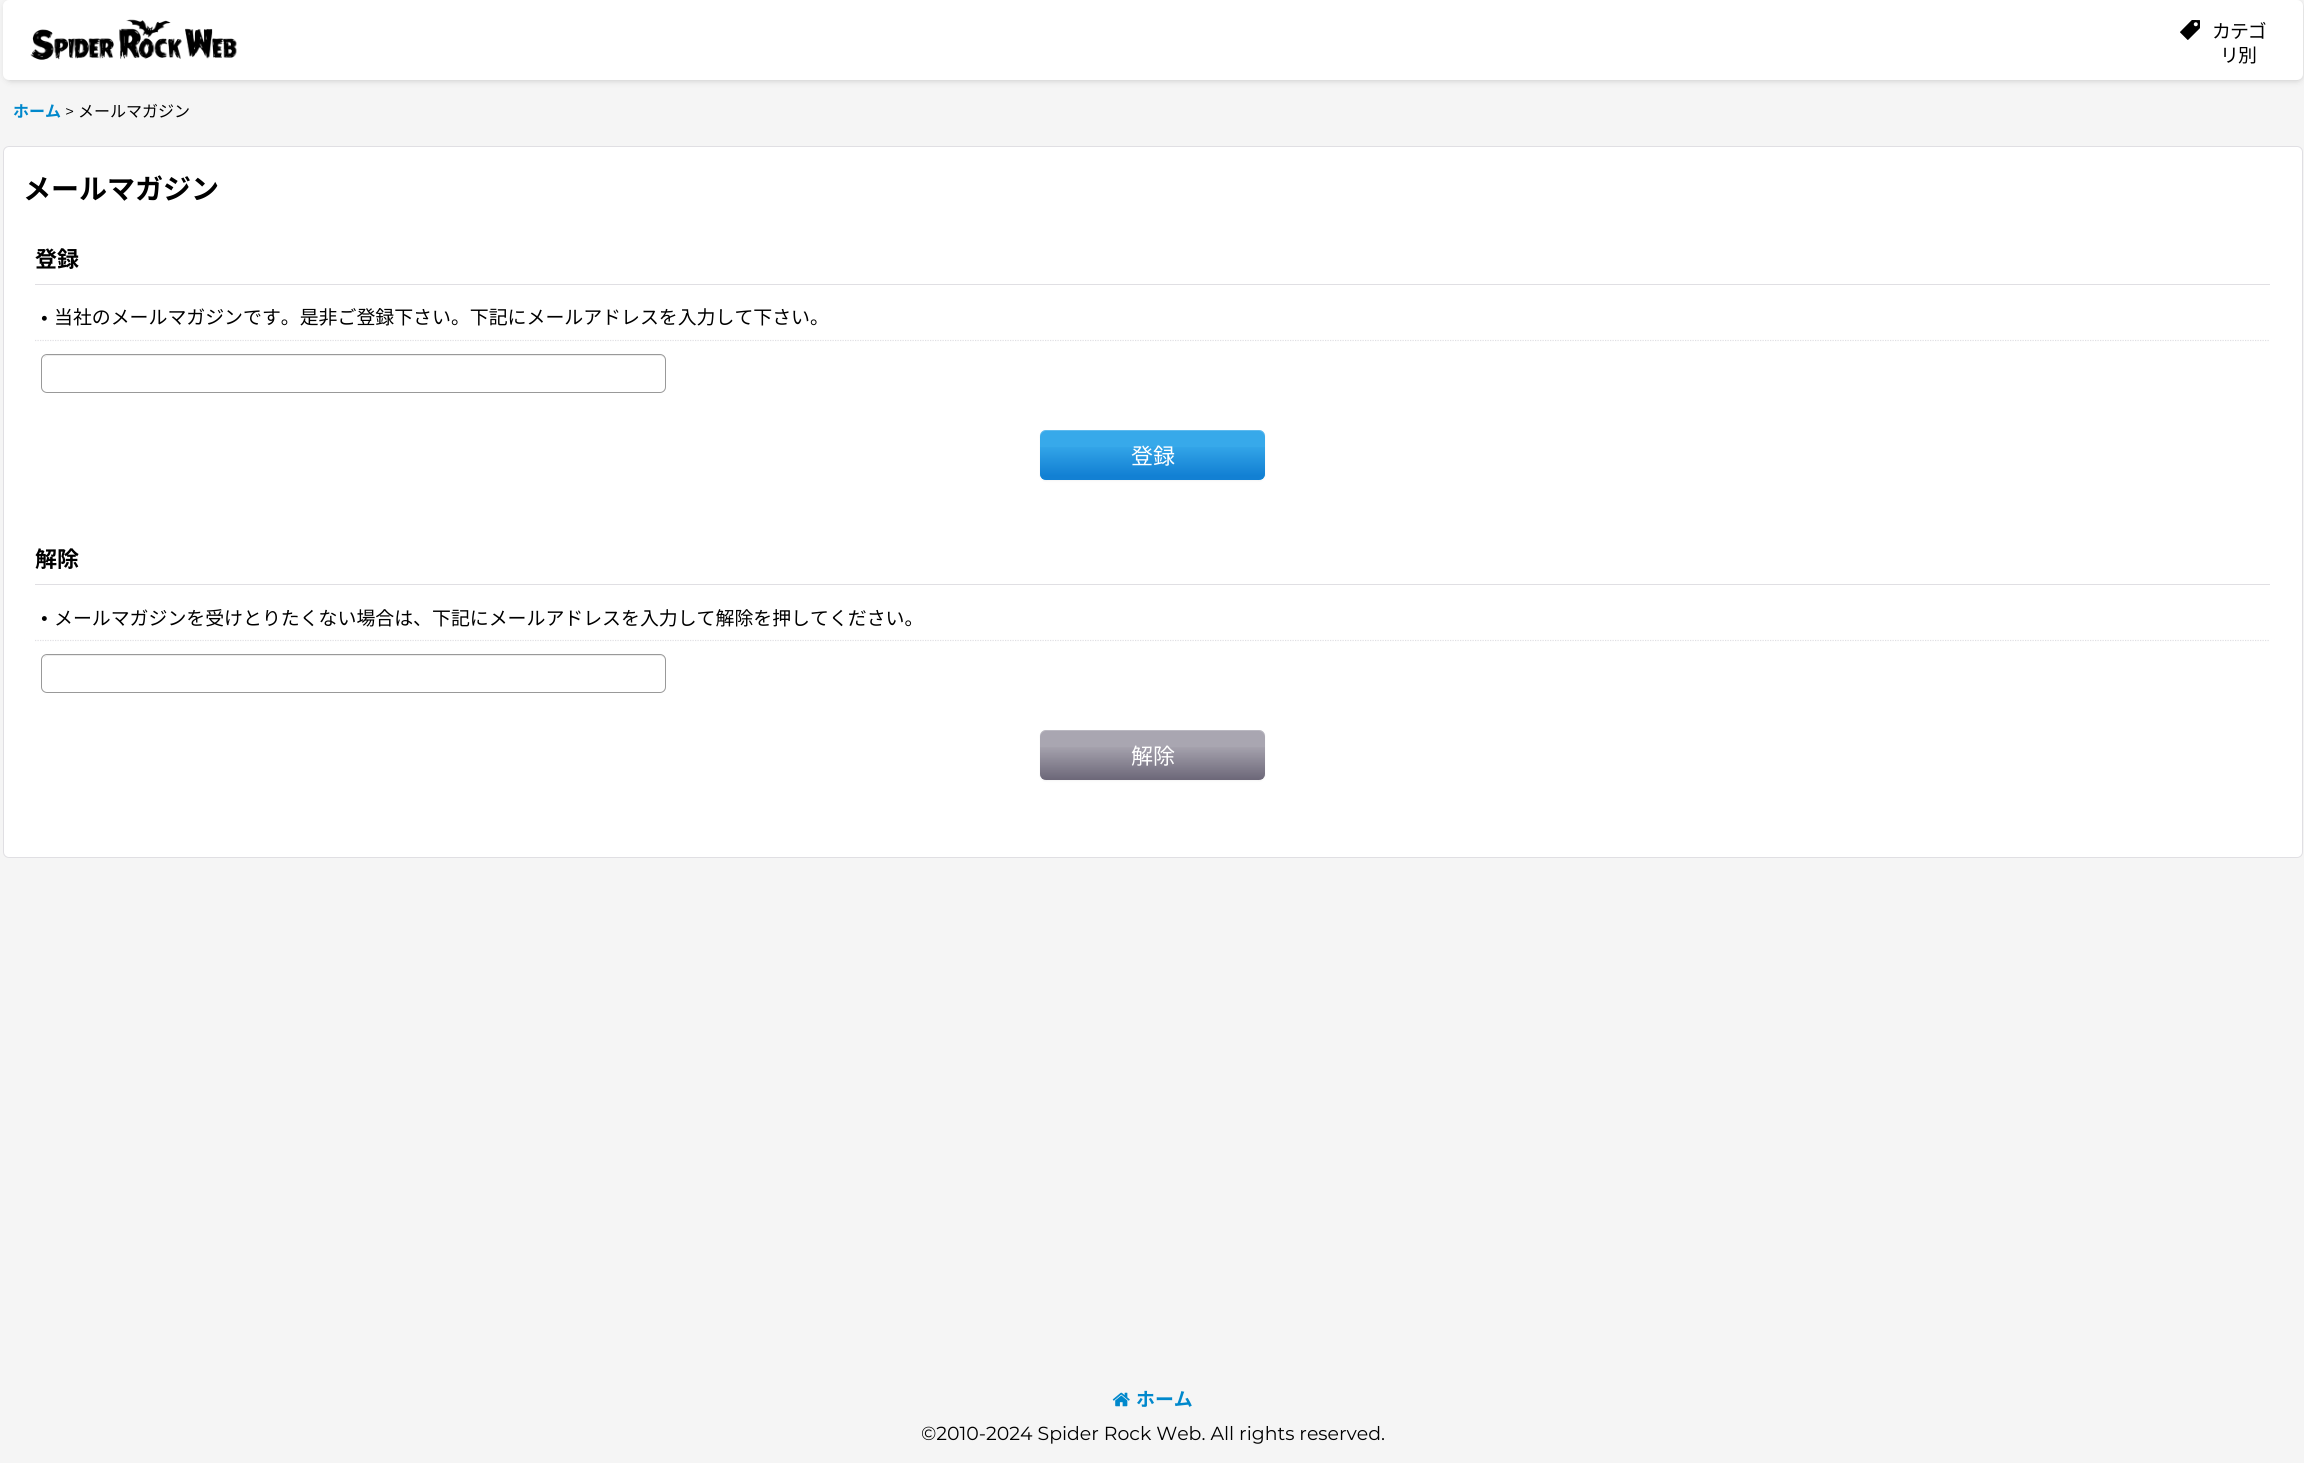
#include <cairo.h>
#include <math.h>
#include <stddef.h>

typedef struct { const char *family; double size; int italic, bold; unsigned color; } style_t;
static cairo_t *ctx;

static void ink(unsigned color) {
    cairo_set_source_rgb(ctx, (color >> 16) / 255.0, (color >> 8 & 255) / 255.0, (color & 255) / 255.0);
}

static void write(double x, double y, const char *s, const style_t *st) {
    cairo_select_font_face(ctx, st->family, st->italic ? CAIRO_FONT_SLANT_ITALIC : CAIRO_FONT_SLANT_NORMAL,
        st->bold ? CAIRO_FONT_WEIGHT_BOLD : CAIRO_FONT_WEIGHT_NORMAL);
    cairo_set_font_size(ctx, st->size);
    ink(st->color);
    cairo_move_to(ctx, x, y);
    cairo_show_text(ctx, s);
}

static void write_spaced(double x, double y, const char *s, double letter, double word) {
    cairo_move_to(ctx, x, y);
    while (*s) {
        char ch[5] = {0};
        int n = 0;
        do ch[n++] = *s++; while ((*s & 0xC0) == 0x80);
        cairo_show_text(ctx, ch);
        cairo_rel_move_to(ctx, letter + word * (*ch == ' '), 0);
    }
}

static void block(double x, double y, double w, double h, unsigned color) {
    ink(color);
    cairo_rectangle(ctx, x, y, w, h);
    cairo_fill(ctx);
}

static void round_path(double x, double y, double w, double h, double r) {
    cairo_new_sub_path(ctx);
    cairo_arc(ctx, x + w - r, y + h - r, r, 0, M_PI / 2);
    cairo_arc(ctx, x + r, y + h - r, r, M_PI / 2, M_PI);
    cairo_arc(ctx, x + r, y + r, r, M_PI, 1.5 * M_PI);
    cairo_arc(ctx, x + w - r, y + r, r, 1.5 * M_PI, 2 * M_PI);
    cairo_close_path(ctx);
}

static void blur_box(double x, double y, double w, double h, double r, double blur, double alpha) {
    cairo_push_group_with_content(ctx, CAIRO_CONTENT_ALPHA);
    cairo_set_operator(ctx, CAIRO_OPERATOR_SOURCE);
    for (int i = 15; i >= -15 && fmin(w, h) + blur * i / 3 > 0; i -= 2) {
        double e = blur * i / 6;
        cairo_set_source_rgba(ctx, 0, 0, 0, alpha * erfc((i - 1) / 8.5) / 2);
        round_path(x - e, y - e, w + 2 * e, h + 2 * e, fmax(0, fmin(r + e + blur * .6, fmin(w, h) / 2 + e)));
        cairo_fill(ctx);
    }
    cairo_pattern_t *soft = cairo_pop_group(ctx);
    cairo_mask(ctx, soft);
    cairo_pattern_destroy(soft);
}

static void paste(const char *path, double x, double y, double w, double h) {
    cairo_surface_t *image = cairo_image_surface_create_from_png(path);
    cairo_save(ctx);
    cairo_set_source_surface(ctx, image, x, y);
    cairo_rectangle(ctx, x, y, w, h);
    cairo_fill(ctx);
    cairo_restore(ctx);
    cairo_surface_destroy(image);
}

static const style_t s1 = {"Noto Sans JP", 16, 0, 1, 0x0088cc};
static const style_t s2 = {"Montserrat", 16, 0, 0, 0x000000};
static const style_t s3 = {"Noto Sans JP", 16, 0, 0, 0x000000};
static const style_t s4 = {"Noto Sans JP", 28, 0, 1, 0x000000};
static const style_t s5 = {"Noto Sans JP", 22, 0, 1, 0x000000};
static const style_t s6 = {"Noto Sans JP", 18.9, 0, 0, 0x000000};
static const style_t s7 = {"Noto Sans JP", 22, 0, 0, 0xffffff};
static const style_t s8 = {"Noto Sans JP", 18.9, 0, 1, 0x0088cc};
static const style_t s9 = {"Montserrat", 18.9, 0, 0, 0x000000};

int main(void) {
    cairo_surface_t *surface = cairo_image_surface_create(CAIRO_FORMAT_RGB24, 2304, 1463);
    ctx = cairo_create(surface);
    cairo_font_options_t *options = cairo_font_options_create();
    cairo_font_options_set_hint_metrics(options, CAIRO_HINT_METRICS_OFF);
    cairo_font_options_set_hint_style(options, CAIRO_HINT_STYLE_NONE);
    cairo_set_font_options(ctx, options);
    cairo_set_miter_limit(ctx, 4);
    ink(0xf5f5f5);
    cairo_paint(ctx);
    ink(0x999999);
    blur_box(8, 5, 2292, 73, 2.5, 4, 1);
    ink(0xffffff);
    round_path(3, 0, 2300, 80, 6);
    cairo_fill(ctx);
    paste("pic1.png", 30, 19, 207, 41);
    paste("pic2.png", 2180, 20, 20, 20);
    cairo_select_font_face(ctx, "Noto Sans JP", CAIRO_FONT_SLANT_NORMAL, CAIRO_FONT_WEIGHT_NORMAL);
    cairo_set_font_size(ctx, 18.9);
    ink(0x000000);
    write_spaced(2212, 38, "カテゴ", -1, 0);
    write_spaced(2220, 62, "リ別", -1, 0);
    write(13, 117, "ホーム", &s1);
    write(65, 117, ">", &s2);
    write(78, 117, "メールマガジン", &s3);
    ink(0xffffff);
    round_path(3.5, 146.5, 2299, 711, 5.5);
    cairo_fill_preserve(ctx);
    ink(0xe0dfe3);
    cairo_set_line_width(ctx, 1);
    cairo_stroke(ctx);
    write(23, 199, "メールマガジン", &s4);
    block(35, 284, 2235, 1, 0xe0dfe3);
    write(35, 267, "登録", &s5);
    cairo_new_path(ctx);
    cairo_move_to(ctx, 35, 340.5);
    cairo_line_to(ctx, 2270, 340.5);
    ink(0xe0dfe3);
    cairo_set_line_width(ctx, 1.2);
    cairo_set_dash(ctx, (double[]){1.25, 1.25}, 2, 0);
    cairo_stroke(ctx);
    paste("pic3.png", 41, 315, 6, 6);
    write(54, 324, "当社のメールマガジンです。是非ご登録下さい。下記にメールアドレスを入力して下さい。", &s6);
    ink(0xececec);
    cairo_new_path(ctx);
    cairo_move_to(ctx, 48, 356);
    cairo_line_to(ctx, 660, 356);
    cairo_curve_to(ctx, 663, 356, 665, 358, 665, 361);
    cairo_line_to(ctx, 665, 360);
    cairo_curve_to(ctx, 665, 357, 663, 355, 660, 355);
    cairo_line_to(ctx, 48, 355);
    cairo_curve_to(ctx, 46, 355, 44, 356, 44, 358);
    cairo_curve_to(ctx, 45, 357, 46, 356, 48, 356);
    cairo_close_path(ctx);
    cairo_fill(ctx);
    round_path(41.5, 354.5, 624, 38, 5.5);
    ink(0x999999);
    cairo_set_line_width(ctx, 1);
    cairo_set_dash(ctx, NULL, 0, 0);
    cairo_stroke(ctx);
    ink(0x000000);
    blur_box(1040, 431, 225, 50, 6, 1, 0.05);
    ink(0x37a9ea);
    round_path(1040, 430, 225, 50, 6);
    cairo_fill(ctx);
    paste("pic4.png", 1040, 447, 225, 33);
    cairo_set_source_rgba(ctx, 1, 1, 1, 0.2);
    cairo_new_path(ctx);
    cairo_move_to(ctx, 1046, 431);
    cairo_line_to(ctx, 1259, 431);
    cairo_curve_to(ctx, 1262, 431, 1265, 434, 1265, 438);
    cairo_line_to(ctx, 1265, 436);
    cairo_curve_to(ctx, 1265, 433, 1262, 430, 1259, 430);
    cairo_line_to(ctx, 1046, 430);
    cairo_curve_to(ctx, 1043, 430, 1040, 433, 1040, 436);
    cairo_line_to(ctx, 1040, 438);
    cairo_curve_to(ctx, 1040, 434, 1043, 431, 1046, 431);
    cairo_close_path(ctx);
    cairo_fill(ctx);
    write(1131, 464, "登録", &s7);
    block(35, 584, 2235, 1, 0xe0dfe3);
    write(35, 567, "解除", &s5);
    cairo_new_path(ctx);
    cairo_move_to(ctx, 35, 640.5);
    cairo_line_to(ctx, 2270, 640.5);
    ink(0xe0dfe3);
    cairo_set_line_width(ctx, 1.2);
    cairo_set_dash(ctx, (double[]){1.25, 1.25}, 2, 0);
    cairo_stroke(ctx);
    paste("pic5.png", 41, 616, 6, 5);
    write(54, 625, "メールマガジンを受けとりたくない場合は、下記にメールアドレスを入力して解除を押してください。", &s6);
    ink(0xececec);
    cairo_new_path(ctx);
    cairo_move_to(ctx, 48, 656);
    cairo_line_to(ctx, 660, 656);
    cairo_curve_to(ctx, 663, 656, 665, 658, 665, 661);
    cairo_line_to(ctx, 665, 660);
    cairo_curve_to(ctx, 665, 657, 663, 655, 660, 655);
    cairo_line_to(ctx, 48, 655);
    cairo_curve_to(ctx, 46, 655, 44, 656, 44, 658);
    cairo_curve_to(ctx, 45, 657, 46, 656, 48, 656);
    cairo_close_path(ctx);
    cairo_fill(ctx);
    round_path(41.5, 654.5, 624, 38, 5.5);
    ink(0x999999);
    cairo_set_line_width(ctx, 1);
    cairo_set_dash(ctx, NULL, 0, 0);
    cairo_stroke(ctx);
    ink(0x000000);
    blur_box(1040, 731, 225, 50, 6, 1, 0.05);
    ink(0xa9a6b1);
    round_path(1040, 730, 225, 50, 6);
    cairo_fill(ctx);
    paste("pic6.png", 1040, 747, 225, 33);
    cairo_set_source_rgba(ctx, 1, 1, 1, 0.2);
    cairo_new_path(ctx);
    cairo_move_to(ctx, 1046, 731);
    cairo_line_to(ctx, 1259, 731);
    cairo_curve_to(ctx, 1262, 731, 1265, 734, 1265, 738);
    cairo_line_to(ctx, 1265, 736);
    cairo_curve_to(ctx, 1265, 733, 1262, 730, 1259, 730);
    cairo_line_to(ctx, 1046, 730);
    cairo_curve_to(ctx, 1043, 730, 1040, 733, 1040, 736);
    cairo_line_to(ctx, 1040, 738);
    cairo_curve_to(ctx, 1040, 734, 1043, 731, 1046, 731);
    cairo_close_path(ctx);
    cairo_fill(ctx);
    write(1131, 764, "解除", &s7);
    paste("pic7.png", 1112, 1392, 18, 15);
    write(1136, 1406, "ホーム", &s8);
    write(921, 1440, "©2010-2024 Spider Rock Web. All rights reserved.", &s9);
    cairo_surface_write_to_png(surface, "screenshot.png");
    cairo_font_options_destroy(options);
    cairo_destroy(ctx);
    cairo_surface_destroy(surface);
    return 0;
}
